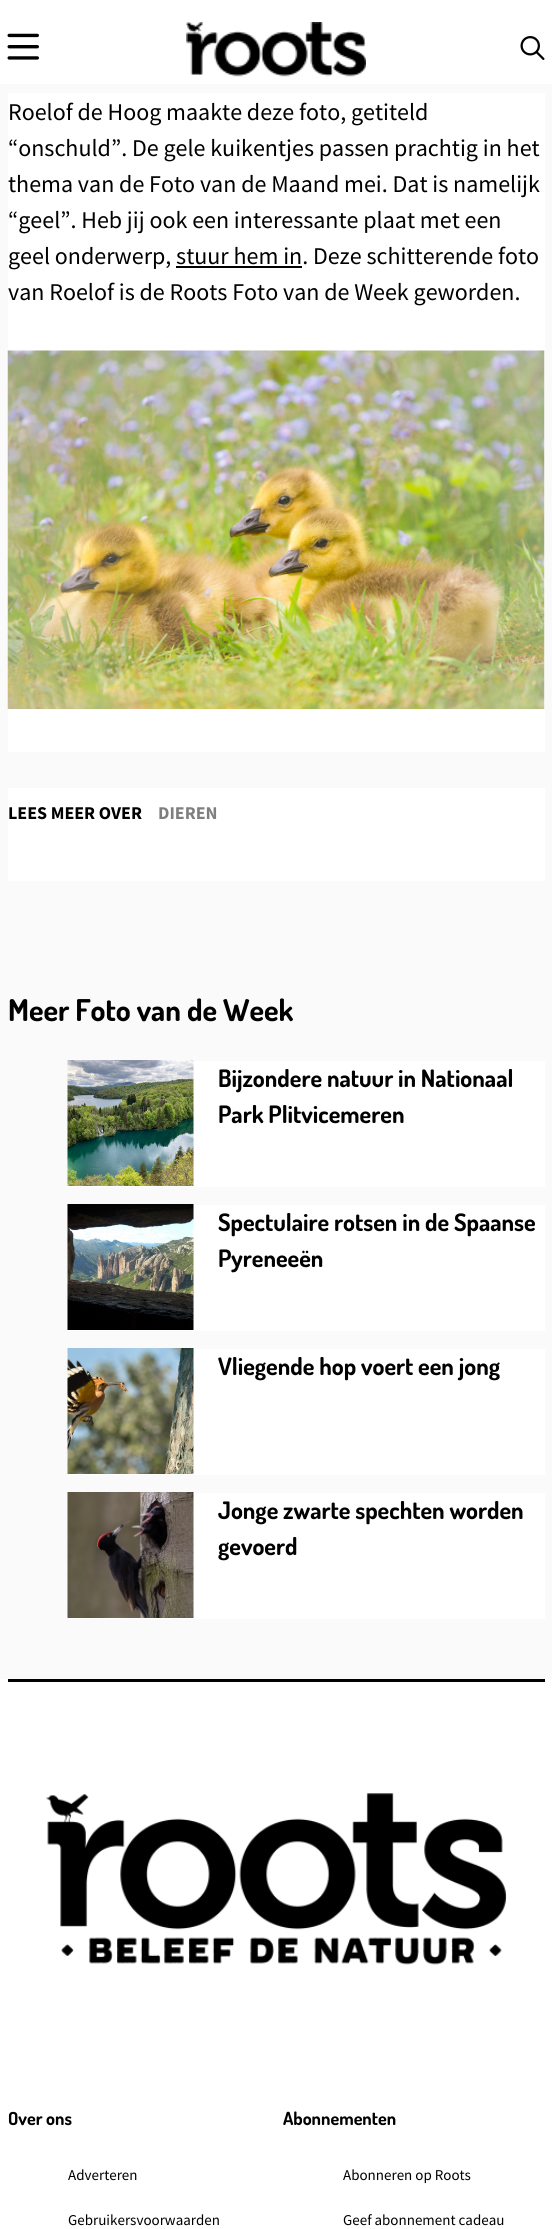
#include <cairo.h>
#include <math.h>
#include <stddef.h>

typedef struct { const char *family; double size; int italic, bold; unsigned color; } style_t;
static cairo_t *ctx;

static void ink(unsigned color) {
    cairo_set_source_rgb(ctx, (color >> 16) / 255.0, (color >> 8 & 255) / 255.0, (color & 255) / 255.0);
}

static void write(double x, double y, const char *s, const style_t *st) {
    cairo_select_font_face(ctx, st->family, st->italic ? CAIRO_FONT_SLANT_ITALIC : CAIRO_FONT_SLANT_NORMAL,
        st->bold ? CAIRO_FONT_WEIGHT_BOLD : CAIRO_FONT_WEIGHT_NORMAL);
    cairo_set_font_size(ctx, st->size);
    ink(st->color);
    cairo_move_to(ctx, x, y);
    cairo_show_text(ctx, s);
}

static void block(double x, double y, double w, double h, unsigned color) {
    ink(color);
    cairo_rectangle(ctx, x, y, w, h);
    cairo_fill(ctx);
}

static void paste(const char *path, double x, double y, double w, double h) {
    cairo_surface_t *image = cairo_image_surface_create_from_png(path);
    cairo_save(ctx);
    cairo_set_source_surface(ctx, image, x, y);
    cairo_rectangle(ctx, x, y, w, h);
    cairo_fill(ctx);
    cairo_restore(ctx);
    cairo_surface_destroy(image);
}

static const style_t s1 = {"Source Sans Pro", 24, 0, 0, 0x000000};
static const style_t s2 = {"Source Sans Pro", 18, 0, 1, 0x000000};
static const style_t s3 = {"Source Sans Pro", 18, 0, 1, 0x7f7f7f};
static const style_t s4 = {"Dosis", 30, 0, 1, 0x000000};
static const style_t s5 = {"Dosis", 24, 0, 1, 0x000000};
static const style_t s6 = {"Dosis", 18, 0, 1, 0x000000};
static const style_t s7 = {"Source Sans Pro", 15, 0, 0, 0x000000};

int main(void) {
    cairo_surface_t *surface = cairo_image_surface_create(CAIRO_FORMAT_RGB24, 552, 2229);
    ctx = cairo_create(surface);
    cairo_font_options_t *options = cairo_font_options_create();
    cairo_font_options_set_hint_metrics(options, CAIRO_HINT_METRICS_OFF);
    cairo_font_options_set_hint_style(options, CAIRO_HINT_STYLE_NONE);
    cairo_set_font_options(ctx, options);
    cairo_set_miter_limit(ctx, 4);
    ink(0xfafafa);
    cairo_paint(ctx);
    block(0, 0, 552, 84, 0xffffff);
    paste("pic1.png", 7, 33, 32, 27);
    paste("pic2.png", 186, 22, 180, 55);
    paste("pic3.png", 520, 36, 25, 24);
    block(8, 93, 537, 659, 0xffffff);
    write(8, 120, "Roelof de Hoog maakte deze foto, getiteld", &s1);
    write(8, 156, "“onschuld”. De gele kuikentjes passen prachtig in het", &s1);
    write(8, 192, "thema van de Foto van de Maand mei. Dat is namelijk", &s1);
    write(8, 228, "“geel”. Heb jij ook een interessante plaat met een", &s1);
    write(8, 264, "geel onderwerp, stuur hem in. Deze schitterende foto", &s1);
    block(176, 266, 126, 2, 0x000000);
    write(8, 300, "van Roelof is de Roots Foto van de Week geworden.", &s1);
    paste("pic4.png", 7, 350, 538, 359);
    block(8, 788, 537, 93, 0xffffff);
    write(8, 819, "LEES MEER OVER", &s2);
    write(158, 819, "DIEREN", &s3);
    write(8, 1021, "Meer Foto van de Week", &s4);
    block(68, 1061, 477, 126, 0xffffff);
    paste("pic5.png", 67, 1060, 127, 126);
    write(218, 1087, "Bijzondere natuur in Nationaal", &s5);
    write(218, 1123, "Park Plitvicemeren", &s5);
    block(68, 1205, 477, 126, 0xffffff);
    paste("pic6.png", 67, 1204, 127, 126);
    write(218, 1231, "Spectulaire rotsen in de Spaanse", &s5);
    write(218, 1267, "Pyreneeën", &s5);
    block(68, 1349, 477, 126, 0xffffff);
    paste("pic7.png", 67, 1348, 127, 126);
    write(218, 1375, "Vliegende hop voert een jong", &s5);
    block(68, 1493, 477, 126, 0xffffff);
    paste("pic8.png", 67, 1492, 127, 126);
    write(218, 1519, "Jonge zwarte spechten worden", &s5);
    write(218, 1555, "gevoerd", &s5);
    block(0, 1679, 552, 550, 0xffffff);
    block(8, 1679, 537, 3, 0x000000);
    paste("pic9.png", 46, 1793, 461, 172);
    write(8, 2125, "Over ons", &s6);
    write(68, 2180, "Adverteren", &s7);
    write(68, 2225, "Gebruikersvoorwaarden", &s7);
    write(283, 2125, "Abonnementen", &s6);
    write(343, 2180, "Abonneren op Roots", &s7);
    write(343, 2225, "Geef abonnement cadeau", &s7);
    cairo_surface_write_to_png(surface, "screenshot.png");
    cairo_font_options_destroy(options);
    cairo_destroy(ctx);
    cairo_surface_destroy(surface);
    return 0;
}
